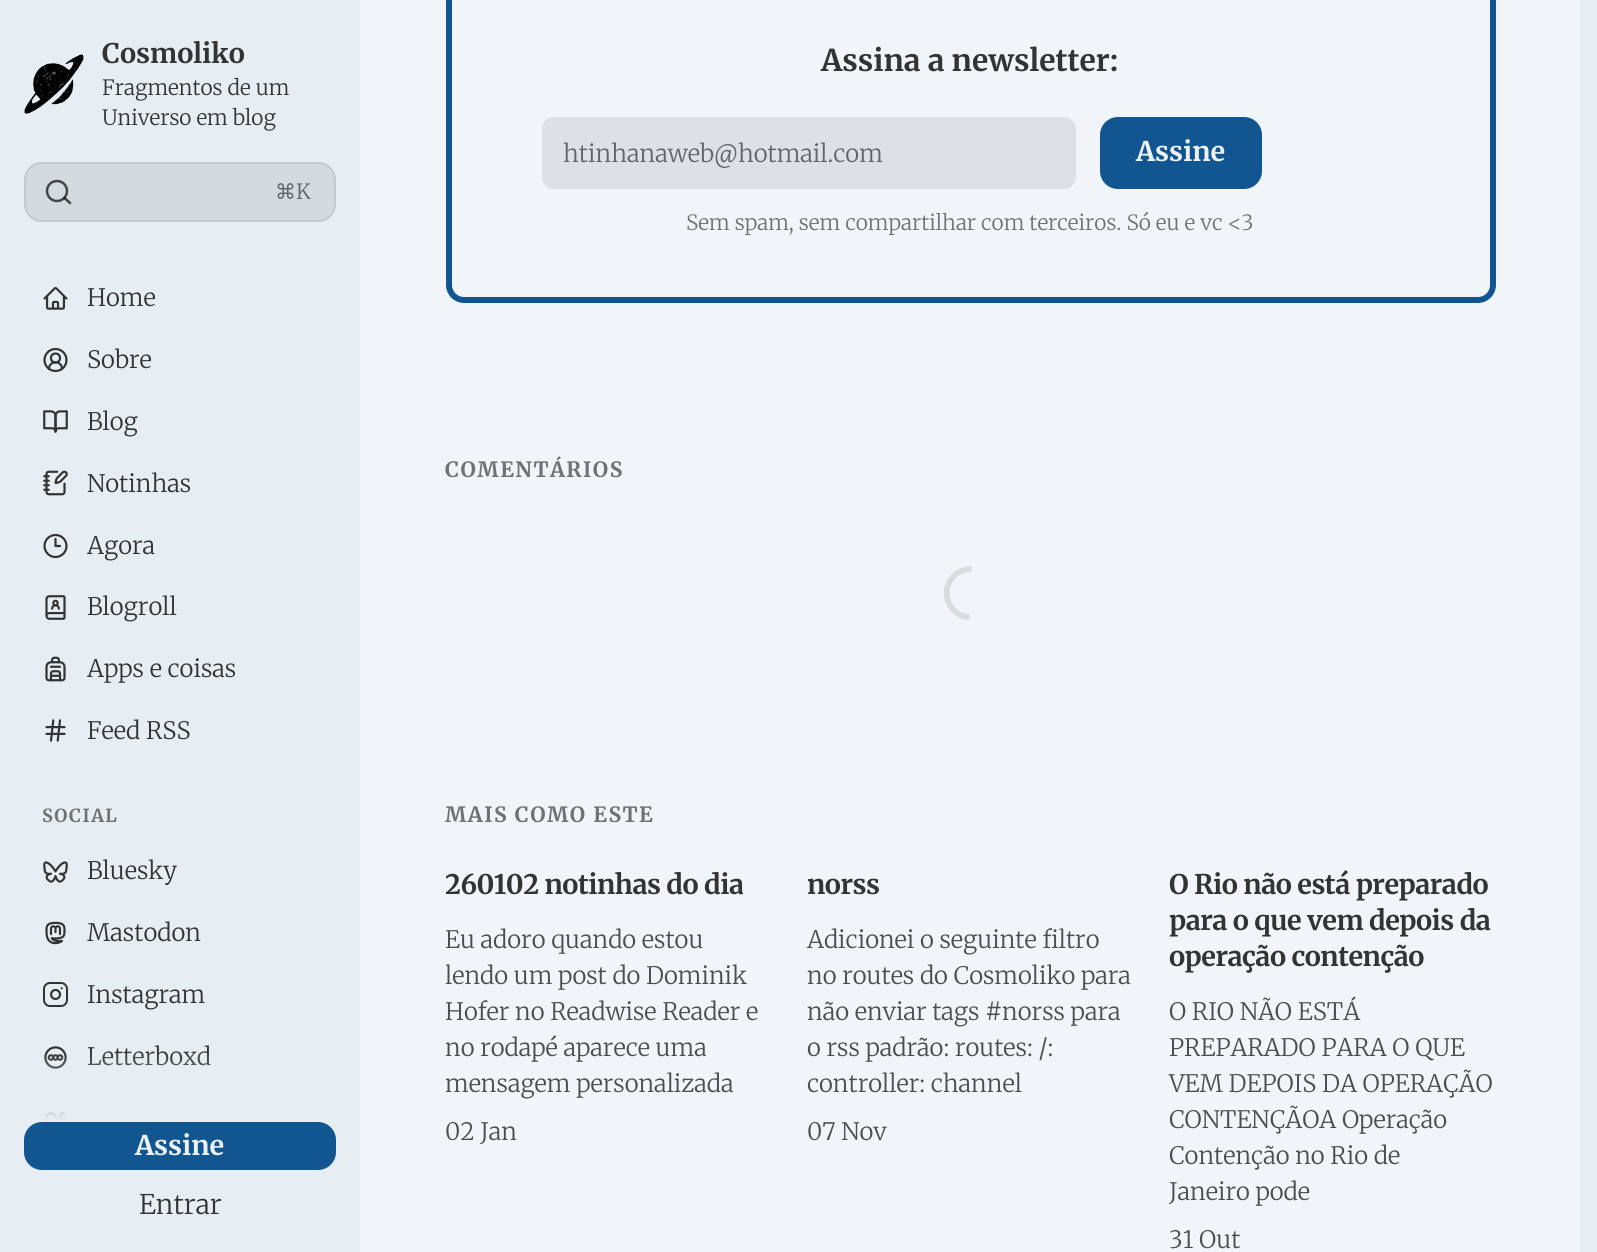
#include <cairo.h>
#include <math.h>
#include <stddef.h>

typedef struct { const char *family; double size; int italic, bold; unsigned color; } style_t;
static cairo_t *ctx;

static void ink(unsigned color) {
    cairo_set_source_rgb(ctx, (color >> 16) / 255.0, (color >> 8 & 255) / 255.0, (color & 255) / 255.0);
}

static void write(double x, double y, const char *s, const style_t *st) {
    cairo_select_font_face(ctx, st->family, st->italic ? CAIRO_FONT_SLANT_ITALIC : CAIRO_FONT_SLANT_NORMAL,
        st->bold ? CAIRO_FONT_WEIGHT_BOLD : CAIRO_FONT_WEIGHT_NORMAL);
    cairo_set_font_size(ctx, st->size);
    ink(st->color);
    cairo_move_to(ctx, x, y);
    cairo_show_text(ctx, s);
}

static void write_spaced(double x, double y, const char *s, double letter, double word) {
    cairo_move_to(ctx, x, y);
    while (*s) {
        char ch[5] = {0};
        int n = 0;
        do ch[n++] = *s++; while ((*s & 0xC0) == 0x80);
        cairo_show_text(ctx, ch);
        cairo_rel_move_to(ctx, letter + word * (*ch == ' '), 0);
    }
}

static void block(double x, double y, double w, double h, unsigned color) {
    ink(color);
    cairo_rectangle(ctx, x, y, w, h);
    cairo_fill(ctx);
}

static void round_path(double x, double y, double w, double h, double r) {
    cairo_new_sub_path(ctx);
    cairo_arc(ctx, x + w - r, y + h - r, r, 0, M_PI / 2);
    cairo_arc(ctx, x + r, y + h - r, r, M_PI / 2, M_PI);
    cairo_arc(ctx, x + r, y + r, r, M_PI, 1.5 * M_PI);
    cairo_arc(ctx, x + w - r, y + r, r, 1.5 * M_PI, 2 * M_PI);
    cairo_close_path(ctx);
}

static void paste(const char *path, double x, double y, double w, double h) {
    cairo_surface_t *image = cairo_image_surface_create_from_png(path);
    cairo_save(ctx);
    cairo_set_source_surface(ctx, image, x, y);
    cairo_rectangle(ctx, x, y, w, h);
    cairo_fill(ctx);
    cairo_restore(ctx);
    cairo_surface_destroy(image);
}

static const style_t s1 = {"Merriweather Light", 27, 0, 0, 0x333333};
static const style_t s2 = {"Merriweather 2 Light", 21, 0, 0, 0x333333};
static const style_t s3 = {"DejaVu Sans", 21, 0, 0, 0x626568};
static const style_t s4 = {"Merriweather 2 Light", 21, 0, 0, 0x626568};
static const style_t s5 = {"Merriweather 2 Light", 24, 0, 0, 0x333333};
static const style_t s6 = {"Merriweather Light", 27, 0, 0, 0xeef2f5};
static const style_t s7 = {"Merriweather 2 Light", 27, 0, 0, 0x333333};
static const style_t s8 = {"Merriweather Light", 30, 0, 0, 0x333333};
static const style_t s9 = {"Merriweather 2 Light", 24, 0, 0, 0x626568};
static const style_t s10 = {"Merriweather 2 Light", 21, 0, 0, 0x6f7172};
static const style_t s11 = {"Merriweather 2 Light", 24, 0, 0, 0x4c4d4e};

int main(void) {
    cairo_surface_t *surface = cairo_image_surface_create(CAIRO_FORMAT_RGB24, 1597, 1252);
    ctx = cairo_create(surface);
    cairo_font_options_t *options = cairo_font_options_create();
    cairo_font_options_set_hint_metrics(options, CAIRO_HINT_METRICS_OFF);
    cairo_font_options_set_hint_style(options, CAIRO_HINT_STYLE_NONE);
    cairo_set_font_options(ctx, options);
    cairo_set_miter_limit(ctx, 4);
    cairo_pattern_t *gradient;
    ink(0xe6eef3);
    cairo_paint(ctx);
    paste("pic1.png", 24, 54, 60, 60);
    write(102, 63, "Cosmoliko", &s1);
    write(102, 95, "Fragmentos de um", &s2);
    write(102, 125, "Universo em blog", &s2);
    ink(0xd4dbe0);
    round_path(24, 162, 312, 60, 18);
    cairo_fill(ctx);
    round_path(25, 163, 310, 58, 17);
    cairo_set_source_rgba(ctx, 0, 0, 0, 0.08);
    cairo_stroke(ctx);
    cairo_arc(ctx, 57, 191, 10, 0, 2 * M_PI);
    ink(0x434547);
    cairo_set_line_width(ctx, 2.5);
    cairo_stroke(ctx);
    cairo_new_path(ctx);
    cairo_move_to(ctx, 70, 203);
    cairo_line_to(ctx, 64.5, 198);
    cairo_set_source_rgba(ctx, 0.02, 0.02, 0.02, 0.7);
    cairo_set_line_cap(ctx, CAIRO_LINE_CAP_ROUND);
    cairo_set_line_join(ctx, CAIRO_LINE_JOIN_ROUND);
    cairo_stroke(ctx);
    write(275, 199, "⌘", &s3);
    write(296, 199, "K", &s4);
    paste("pic2.png", 43, 287, 25, 23);
    write(87, 306, "Home", &s5);
    cairo_new_path(ctx);
    cairo_move_to(ctx, 62, 369);
    cairo_curve_to(ctx, 62, 360, 49, 360, 49, 369);
    cairo_set_line_width(ctx, 2.2);
    cairo_stroke(ctx);
    cairo_arc(ctx, 55.5, 358, 4.5, 0, 2 * M_PI);
    cairo_set_line_cap(ctx, CAIRO_LINE_CAP_BUTT);
    cairo_set_line_join(ctx, CAIRO_LINE_JOIN_MITER);
    cairo_stroke(ctx);
    cairo_arc(ctx, 55.5, 360, 11, 0, 2 * M_PI);
    cairo_stroke(ctx);
    write(87, 368, "Sobre", &s5);
    paste("pic3.png", 43, 410, 25, 23);
    write(87, 430, "Blog", &s5);
    paste("pic4.png", 43, 470, 25, 26);
    write(87, 492, "Notinhas", &s5);
    cairo_new_path(ctx);
    cairo_move_to(ctx, 55.5, 539);
    cairo_line_to(ctx, 55.5, 546);
    cairo_line_to(ctx, 60, 546);
    cairo_set_line_cap(ctx, CAIRO_LINE_CAP_ROUND);
    cairo_set_line_join(ctx, CAIRO_LINE_JOIN_ROUND);
    cairo_stroke(ctx);
    cairo_arc(ctx, 55.5, 546, 11, 0, 2 * M_PI);
    cairo_set_line_cap(ctx, CAIRO_LINE_CAP_BUTT);
    cairo_set_line_join(ctx, CAIRO_LINE_JOIN_MITER);
    cairo_stroke(ctx);
    write(87, 554, "Agora", &s5);
    paste("pic5.png", 45, 595, 21, 25);
    write(87, 615, "Blogroll", &s5);
    paste("pic6.png", 45, 656, 21, 26);
    write(87, 677, "Apps e coisas", &s5);
    paste("pic7.png", 45, 719, 21, 23);
    write(87, 739, "Feed RSS", &s5);
    cairo_select_font_face(ctx, "Merriweather Light", CAIRO_FONT_SLANT_NORMAL, CAIRO_FONT_WEIGHT_NORMAL);
    cairo_set_font_size(ctx, 18);
    ink(0x6f7172);
    write_spaced(42, 822, "SOCIAL", 1.5, 0);
    paste("pic8.png", 43, 861, 25, 22);
    write(87, 879, "Bluesky", &s5);
    paste("pic9.png", 45, 921, 21, 24);
    write(87, 941, "Mastodon", &s5);
    paste("pic10.png", 43, 982, 25, 25);
    write(87, 1003, "Instagram", &s5);
    paste("pic11.png", 44, 1046, 23, 23);
    write(87, 1065, "Letterboxd", &s5);
    paste("pic12.png", 44, 1112, 23, 9);
    gradient = cairo_pattern_create_linear(180, 1050, 180, 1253);
    cairo_pattern_add_color_stop_rgba(gradient, 0, 0.902, 0.933, 0.953, 0);
    cairo_pattern_add_color_stop_rgba(gradient, 0.2, 0.902, 0.933, 0.953, 0.5);
    cairo_pattern_add_color_stop_rgba(gradient, 0.35, 0.902, 0.933, 0.953, 1);
    cairo_pattern_add_color_stop_rgba(gradient, 1, 0.902, 0.933, 0.953, 1);
    cairo_set_source(ctx, gradient);
    cairo_pattern_destroy(gradient);
    cairo_rectangle(ctx, 44, 1052, 167, 69);
    cairo_fill(ctx);
    ink(0x125691);
    round_path(24, 1122, 312, 48, 18);
    cairo_fill(ctx);
    write(135, 1155, "Assine", &s6);
    write(139, 1214, "Entrar", &s7);
    block(360, 0, 1220, 1252, 0xf1f4f8);
    round_path(449, -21, 1044, 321, 15);
    ink(0x125691);
    cairo_set_line_width(ctx, 6);
    cairo_stroke(ctx);
    write(821, 71, "Assina a newsletter:", &s8);
    ink(0xdee0e4);
    round_path(542, 117, 534, 72, 12);
    cairo_fill(ctx);
    write(563, 162, "htinhanaweb@hotmail.com", &s9);
    ink(0x125691);
    round_path(1100, 117, 162, 72, 18);
    cairo_fill(ctx);
    write(1136, 161, "Assine", &s6);
    write(686, 230, "Sem spam, sem compartilhar com terceiros. Só eu e vc <3", &s10);
    cairo_select_font_face(ctx, "Merriweather Light", CAIRO_FONT_SLANT_NORMAL, CAIRO_FONT_WEIGHT_NORMAL);
    write_spaced(445, 477, "COMENTÁRIOS", 1.5, 0);
    paste("pic13.png", 943, 566, 29, 54);
    write_spaced(445, 822, "MAIS COMO ESTE", 1.5, 0);
    cairo_save(ctx);
    cairo_rectangle(ctx, 446, 867, 297, 36);
    cairo_clip(ctx);
    cairo_set_font_size(ctx, 27);
    ink(0x333333);
    write_spaced(445, 894, "260102 notinhas do dia", -0.5, 0);
    cairo_restore(ctx);
    write(445, 948, "Eu adoro quando estou", &s11);
    cairo_save(ctx);
    cairo_rectangle(ctx, 446, 867, 325, 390);
    cairo_clip(ctx);
    write(445, 984, "lendo um post do Dominik", &s11);
    cairo_restore(ctx);
    write(445, 1020, "Hofer no Readwise Reader e", &s11);
    cairo_save(ctx);
    cairo_rectangle(ctx, 446, 867, 325, 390);
    cairo_clip(ctx);
    write(445, 1056, "no rodapé aparece uma", &s11);
    write(445, 1092, "mensagem personalizada", &s11);
    cairo_restore(ctx);
    write(445, 1140, "02 Jan", &s11);
    cairo_select_font_face(ctx, "Merriweather Light", CAIRO_FONT_SLANT_NORMAL, CAIRO_FONT_WEIGHT_NORMAL);
    cairo_set_font_size(ctx, 27);
    ink(0x333333);
    write_spaced(807, 894, "norss", -0.5, 0);
    write(807, 948, "Adicionei o seguinte filtro", &s11);
    write(807, 984, "no routes do Cosmoliko para", &s11);
    write(807, 1020, "não enviar tags #norss para", &s11);
    write(807, 1056, "o rss padrão: routes: /:", &s11);
    write(807, 1092, "controller: channel", &s11);
    write(807, 1140, "07 Nov", &s11);
    cairo_select_font_face(ctx, "Merriweather Light", CAIRO_FONT_SLANT_NORMAL, CAIRO_FONT_WEIGHT_NORMAL);
    cairo_set_font_size(ctx, 27);
    ink(0x333333);
    write_spaced(1169, 894, "O Rio não está preparado", -0.5, 0);
    write_spaced(1169, 930, "para o que vem depois da", -0.5, 0);
    write_spaced(1169, 966, "operação contenção", -0.5, 0);
    write(1169, 1020, "O RIO NÃO ESTÁ", &s11);
    write(1169, 1056, "PREPARADO PARA O QUE", &s11);
    write(1169, 1092, "VEM DEPOIS DA OPERAÇÃO", &s11);
    write(1169, 1128, "CONTENÇÃOA Operação", &s11);
    write(1169, 1164, "Contenção no Rio de", &s11);
    write(1169, 1200, "Janeiro pode", &s11);
    write(1169, 1248, "31 Out", &s11);
    cairo_surface_write_to_png(surface, "screenshot.png");
    cairo_font_options_destroy(options);
    cairo_destroy(ctx);
    cairo_surface_destroy(surface);
    return 0;
}
